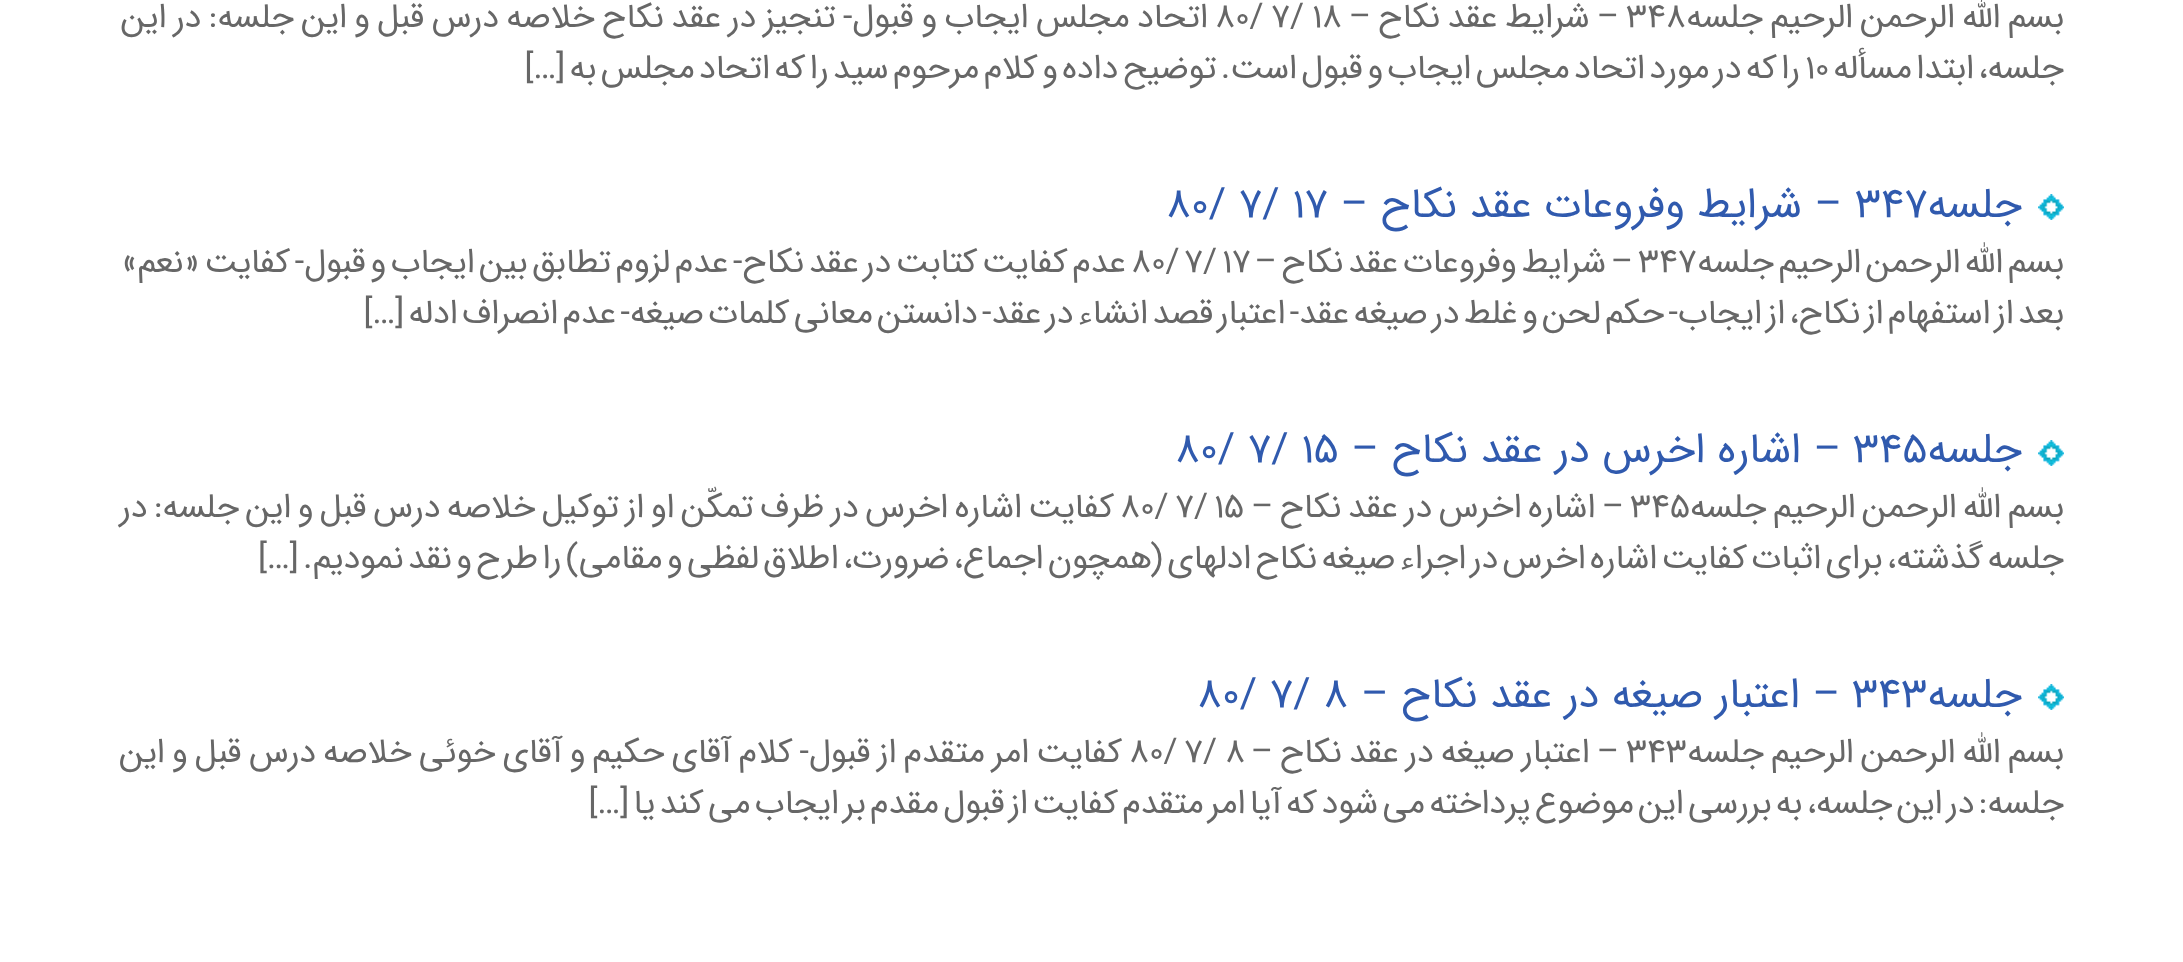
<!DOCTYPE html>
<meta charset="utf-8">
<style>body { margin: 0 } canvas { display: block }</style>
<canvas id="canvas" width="2183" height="962"></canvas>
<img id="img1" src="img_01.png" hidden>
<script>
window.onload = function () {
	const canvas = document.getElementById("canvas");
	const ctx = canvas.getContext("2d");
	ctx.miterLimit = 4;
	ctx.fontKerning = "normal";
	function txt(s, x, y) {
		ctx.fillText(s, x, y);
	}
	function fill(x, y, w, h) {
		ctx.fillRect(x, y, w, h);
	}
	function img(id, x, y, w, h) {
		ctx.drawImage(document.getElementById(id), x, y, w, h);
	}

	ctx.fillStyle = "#FFFFFF";
	fill(0, 0, 2183, 962);
	img("img1", 2038, 194, 26, 26);
	img("img1", 2038, 440, 26, 26);
	img("img1", 2038, 684, 26, 26);
	ctx.wordSpacing = "-3px";
	ctx.direction = "rtl";
	ctx.font = "34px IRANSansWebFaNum";
	ctx.fillStyle = "#676767";
	txt("بسم الله الرحمن الرحيم جلسه", 2064, 27);
	txt("– شرايط عقد نكاح –", 1619, 27);
	ctx.wordSpacing = "0px";
	ctx.direction = "ltr";
	txt("348", 1626, 27);
	txt("18", 1312, 27);
	txt("7/", 1271, 27);
	ctx.wordSpacing = "-3px";
	ctx.direction = "rtl";
	txt("اتحاد مجلس ايجاب و قبول- تنجيز در عقد نكاح خلاصه درس قبل و اين جلسه: در اين", 1208, 27);
	ctx.wordSpacing = "0px";
	ctx.direction = "ltr";
	txt("80/", 1215, 27);
	ctx.wordSpacing = "-6px";
	ctx.direction = "rtl";
	txt("جلسه، ابتدا مسأله", 2064, 78);
	txt("را كه در مورد اتحاد مجلس ايجاب و قبول است. توضيح داده و كلام مرحوم سيد را كه اتحاد مجلس به […]", 1800, 78);
	ctx.wordSpacing = "0px";
	ctx.direction = "ltr";
	txt("10", 1805, 78);
	ctx.direction = "rtl";
	ctx.font = "42px IRANSansWebFaNum";
	ctx.fillStyle = "#305AAE";
	txt("جلسه", 2022, 217);
	ctx.direction = "ltr";
	txt("347", 1855, 217);
	ctx.direction = "rtl";
	txt("– شرايط وفروعات عقد نكاح –", 1842, 217);
	ctx.direction = "ltr";
	txt("80/ 7/ 17", 1166, 217);
	ctx.wordSpacing = "-5.75px";
	ctx.direction = "rtl";
	ctx.font = "34px IRANSansWebFaNum";
	ctx.fillStyle = "#676767";
	txt("بسم الله الرحمن الرحيم جلسه", 2064, 272);
	ctx.wordSpacing = "-5.5px";
	txt("– شرايط وفروعات عقد نكاح –", 1633, 272);
	ctx.wordSpacing = "0px";
	ctx.direction = "ltr";
	txt("347", 1638, 272);
	txt("17", 1222, 272);
	txt("7/", 1184, 272);
	ctx.wordSpacing = "-5.75px";
	ctx.direction = "rtl";
	txt("عدم كفايت كتابت در عقد نكاح- عدم لزوم تطابق بين ايجاب و قبول- كفايت «نعم»", 1126, 272);
	ctx.wordSpacing = "0px";
	ctx.direction = "ltr";
	txt("80/", 1131, 272);
	ctx.wordSpacing = "-6px";
	ctx.direction = "rtl";
	txt("بعد از استفهام از نکاح، از ايجاب- حكم لحن و غلط در صيغه عقد- اعتبار قصد انشاء در عقد- دانستن معاني كلمات صيغه- عدم انصراف ادله […]", 2064, 323);
	ctx.wordSpacing = "0px";
	ctx.font = "42px IRANSansWebFaNum";
	ctx.fillStyle = "#305AAE";
	txt("جلسه", 2022, 462);
	ctx.direction = "ltr";
	txt("345", 1853, 462);
	ctx.direction = "rtl";
	txt("– اشاره اخرس در عقد نکاح –", 1841, 462);
	ctx.direction = "ltr";
	txt("80/ 7/ 15", 1175, 462);
	ctx.wordSpacing = "-3.9px";
	ctx.direction = "rtl";
	ctx.font = "34px IRANSansWebFaNum";
	ctx.fillStyle = "#676767";
	txt("بسم الله الرحمن الرحيم جلسه", 2064, 517);
	txt("– اشاره اخرس در عقد نکاح –", 1624, 517);
	ctx.wordSpacing = "0px";
	ctx.direction = "ltr";
	txt("345", 1630, 517);
	txt("15", 1214, 517);
	txt("7/", 1175, 517);
	ctx.wordSpacing = "-3.9px";
	ctx.direction = "rtl";
	txt("كفايت اشاره اخرس در ظرف تمكّن او از توكيل خلاصه درس قبل و اين جلسه: در", 1114, 517);
	ctx.wordSpacing = "0px";
	ctx.direction = "ltr";
	txt("80/", 1120, 517);
	ctx.wordSpacing = "-6px";
	ctx.direction = "rtl";
	txt("جلسه گذشته، براي اثبات كفايت اشاره اخرس در اجراء صيغه نكاح ادلهاي (همچون اجماع، ضرورت، اطلاق لفظي و مقامي) را طرح و نقد نموديم. […]", 2064, 568);
	ctx.wordSpacing = "0px";
	ctx.font = "42px IRANSansWebFaNum";
	ctx.fillStyle = "#305AAE";
	txt("جلسه", 2022, 707);
	ctx.direction = "ltr";
	txt("343", 1852, 707);
	ctx.direction = "rtl";
	txt("– اعتبار صيغه در عقد نکاح –", 1840, 707);
	ctx.direction = "ltr";
	txt("80/ 7/ 8", 1197, 707);
	ctx.wordSpacing = "-3.25px";
	ctx.direction = "rtl";
	ctx.font = "34px IRANSansWebFaNum";
	ctx.fillStyle = "#676767";
	txt("بسم الله الرحمن الرحيم جلسه", 2064, 762);
	txt("– اعتبار صيغه در عقد نکاح –", 1619, 762);
	ctx.wordSpacing = "0px";
	ctx.direction = "ltr";
	txt("343", 1626, 762);
	txt("8", 1225, 762);
	txt("7/", 1184, 762);
	ctx.wordSpacing = "-3.25px";
	ctx.direction = "rtl";
	txt("كفايت امر متقدم از قبول- کلام آقای حکيم و آقای خوئی خلاصه درس قبل و اين", 1122, 762);
	ctx.wordSpacing = "0px";
	ctx.direction = "ltr";
	txt("80/", 1129, 762);
	ctx.wordSpacing = "-6px";
	ctx.direction = "rtl";
	txt("جلسه: در اين جلسه، به بررسي اين موضوع پرداخته مي شود كه آيا امر متقدم كفايت از قبول مقدم بر ايجاب مي كند يا […]", 2064, 813);
};
</script>
